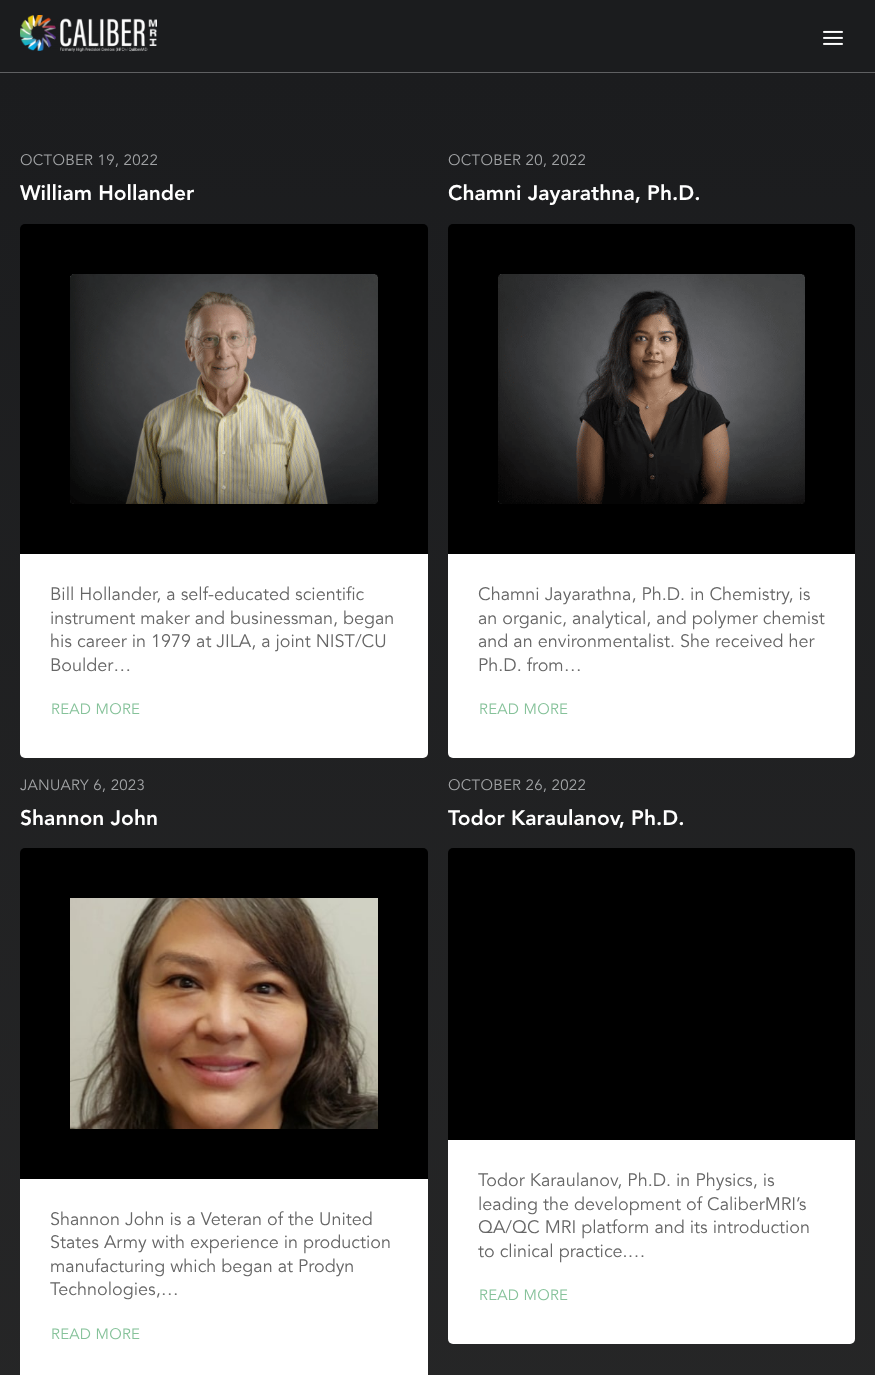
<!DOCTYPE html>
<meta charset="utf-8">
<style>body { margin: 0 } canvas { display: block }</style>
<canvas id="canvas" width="875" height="1375"></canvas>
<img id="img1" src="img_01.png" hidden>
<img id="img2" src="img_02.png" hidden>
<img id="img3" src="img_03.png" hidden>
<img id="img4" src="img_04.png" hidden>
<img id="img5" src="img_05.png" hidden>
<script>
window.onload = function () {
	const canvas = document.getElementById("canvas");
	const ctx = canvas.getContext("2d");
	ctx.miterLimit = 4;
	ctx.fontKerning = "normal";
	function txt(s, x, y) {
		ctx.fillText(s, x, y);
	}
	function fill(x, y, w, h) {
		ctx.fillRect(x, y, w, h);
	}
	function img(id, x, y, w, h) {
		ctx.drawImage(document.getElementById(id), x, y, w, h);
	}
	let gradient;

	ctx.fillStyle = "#FFFFFF";
	fill(0, 0, 875, 1375);
	ctx.fillStyle = "#1B1C1E";
	fill(0, 0, 875, 72);
	ctx.fillStyle = "#5F6062";
	fill(0, 72, 875, 1);
	img("img1", 20, 15, 137, 37);
	img("img2", 823, 30, 20, 15);
	gradient = ctx.createLinearGradient(438, 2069, 438, 73);
	gradient.addColorStop(0, "#2B2B2B");
	gradient.addColorStop(1, "#1B1C1E");
	ctx.fillStyle = gradient;
	fill(0, 73, 875, 1302);
	ctx.fillStyle = "#000000";
	ctx.beginPath();
	ctx.roundRect(20, 224, 408, 330, [5, 5, 0, 0]);
	ctx.fill();
	img("img3", 70, 274, 308, 230);
	ctx.fillStyle = "#FFFFFF";
	ctx.beginPath();
	ctx.roundRect(20, 554, 408, 204, [0, 0, 5, 5]);
	ctx.fill();
	ctx.fillStyle = "#000000";
	ctx.beginPath();
	ctx.roundRect(448, 224, 407, 330, [5, 5, 0, 0]);
	ctx.fill();
	img("img4", 498, 274, 307, 230);
	ctx.fillStyle = "#FFFFFF";
	ctx.beginPath();
	ctx.roundRect(448, 554, 407, 204, [0, 0, 5, 5]);
	ctx.fill();
	ctx.fillStyle = "#000000";
	ctx.beginPath();
	ctx.roundRect(20, 848, 408, 331, [5, 5, 0, 0]);
	ctx.fill();
	img("img5", 70, 898, 308, 231);
	ctx.fillStyle = "#FFFFFF";
	fill(20, 1179, 408, 196);
	ctx.fillStyle = "#000000";
	ctx.beginPath();
	ctx.roundRect(448, 848, 407, 292, [5, 5, 0, 0]);
	ctx.fill();
	ctx.fillStyle = "#FFFFFF";
	ctx.beginPath();
	ctx.roundRect(448, 1140, 407, 204, [0, 0, 5, 5]);
	ctx.fill();
	ctx.letterSpacing = "0.25px";
	ctx.font = "15px Avenir";
	ctx.fillStyle = "#A1A3A5";
	txt("OCTOBER 19, 2022", 20, 165);
	ctx.letterSpacing = "0px";
	ctx.font = "900 21px Avenir";
	ctx.fillStyle = "#FFFFFF";
	txt("William Hollander", 20, 200);
	ctx.font = "18px Avenir";
	ctx.fillStyle = "#666666";
	txt("Bill Hollander, a self-educated scientific", 50, 600);
	txt("instrument maker and businessman, began", 50, 624);
	txt("his career in 1979 at JILA, a joint NIST/CU", 50, 647);
	txt("Boulder…", 50, 671);
	ctx.letterSpacing = "0.25px";
	ctx.font = "15px Avenir";
	ctx.fillStyle = "#86C29A";
	txt("READ MORE", 51, 714);
	ctx.fillStyle = "#A1A3A5";
	txt("OCTOBER 20, 2022", 448, 165);
	ctx.letterSpacing = "0px";
	ctx.font = "900 21px Avenir";
	ctx.fillStyle = "#FFFFFF";
	txt("Chamni Jayarathna, Ph.D.", 448, 200);
	ctx.font = "18px Avenir";
	ctx.fillStyle = "#666666";
	txt("Chamni Jayarathna, Ph.D. in Chemistry, is", 478, 600);
	txt("an organic, analytical, and polymer chemist", 478, 624);
	txt("and an environmentalist. She received her", 478, 647);
	txt("Ph.D. from…", 478, 671);
	ctx.letterSpacing = "0.25px";
	ctx.font = "15px Avenir";
	ctx.fillStyle = "#86C29A";
	txt("READ MORE", 479, 714);
	ctx.fillStyle = "#A1A3A5";
	txt("JANUARY 6, 2023", 20, 790);
	ctx.letterSpacing = "0px";
	ctx.font = "900 21px Avenir";
	ctx.fillStyle = "#FFFFFF";
	txt("Shannon John", 20, 825);
	ctx.font = "18px Avenir";
	ctx.fillStyle = "#666666";
	txt("Shannon John is a Veteran of the United", 50, 1225);
	txt("States Army with experience in production", 50, 1248);
	txt("manufacturing which began at Prodyn", 50, 1272);
	txt("Technologies,…", 50, 1295);
	ctx.letterSpacing = "0.25px";
	ctx.font = "15px Avenir";
	ctx.fillStyle = "#86C29A";
	txt("READ MORE", 51, 1339);
	ctx.fillStyle = "#A1A3A5";
	txt("OCTOBER 26, 2022", 448, 790);
	ctx.save();
	ctx.beginPath();
	ctx.rect(448, 796, 407, 37);
	ctx.clip();
	ctx.letterSpacing = "0px";
	ctx.font = "900 21px Avenir";
	ctx.fillStyle = "#FFFFFF";
	txt("Todor Karaulanov, Ph.D.", 448, 825);
	ctx.restore();
	ctx.letterSpacing = "0px";
	ctx.font = "18px Avenir";
	ctx.fillStyle = "#666666";
	txt("Todor Karaulanov, Ph.D. in Physics, is", 478, 1186);
	txt("leading the development of CaliberMRI’s", 478, 1210);
	txt("QA/QC MRI platform and its introduction", 478, 1233);
	txt("to clinical practice.…", 478, 1257);
	ctx.letterSpacing = "0.25px";
	ctx.font = "15px Avenir";
	ctx.fillStyle = "#86C29A";
	txt("READ MORE", 479, 1300);
};
</script>
